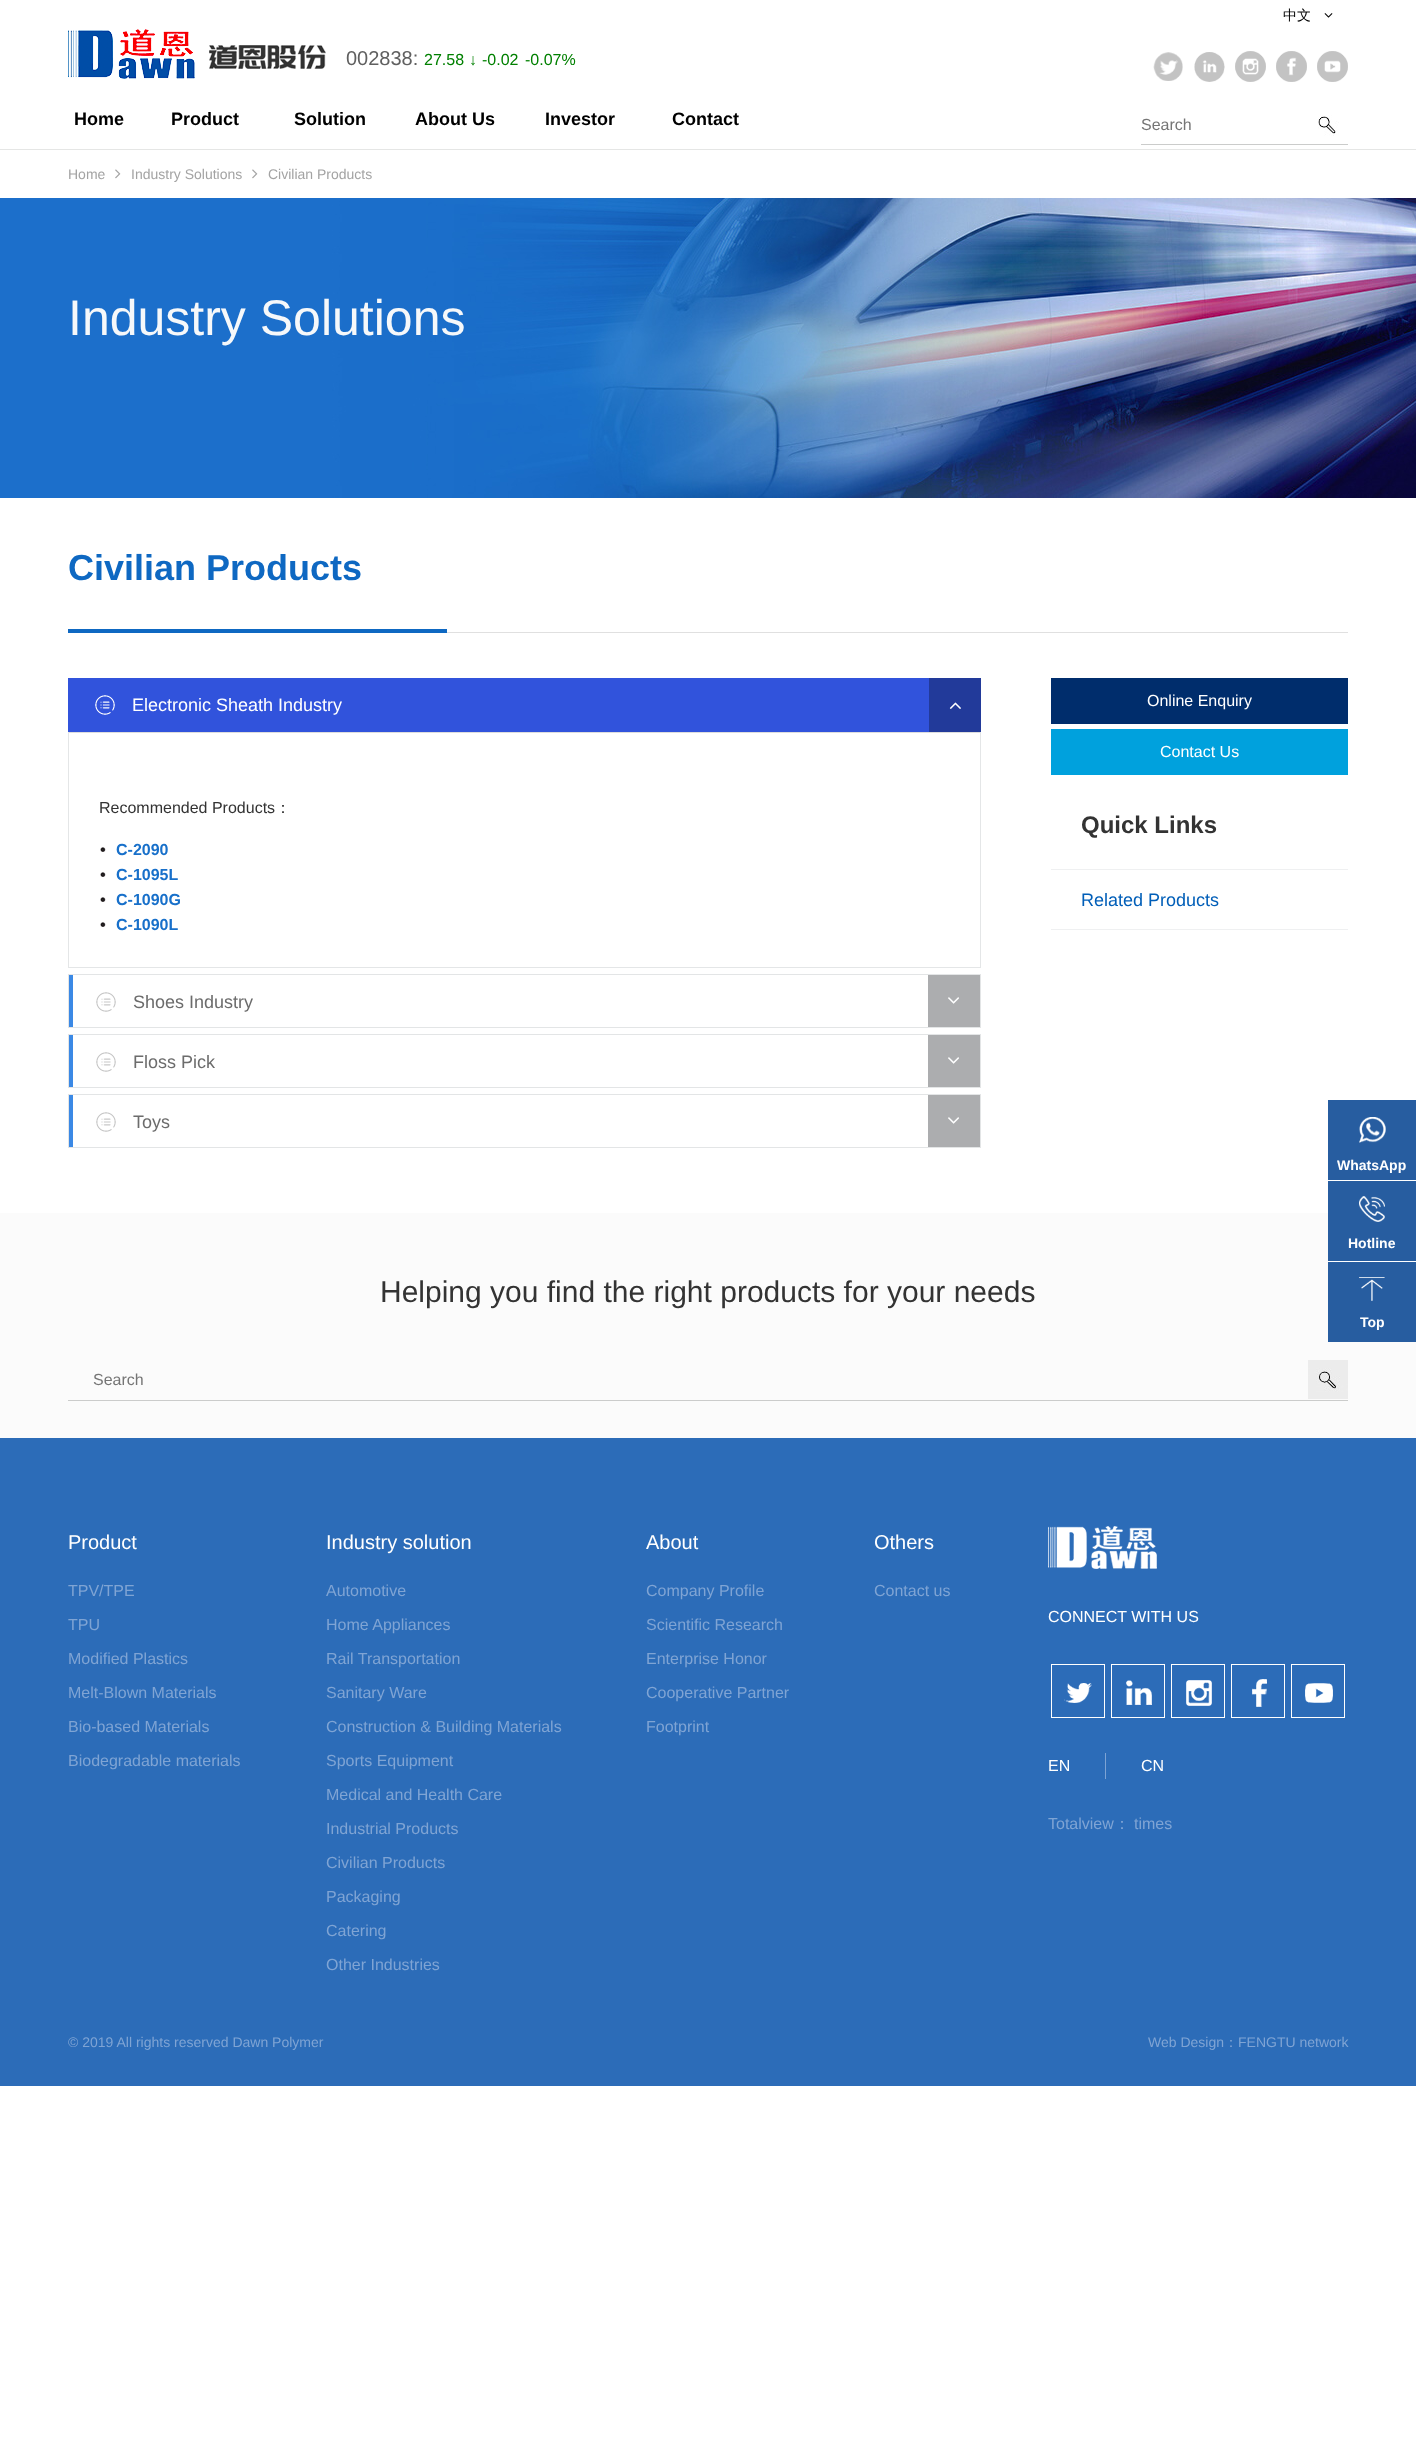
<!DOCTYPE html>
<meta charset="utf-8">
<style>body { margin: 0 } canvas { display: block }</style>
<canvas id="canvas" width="1416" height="2442"></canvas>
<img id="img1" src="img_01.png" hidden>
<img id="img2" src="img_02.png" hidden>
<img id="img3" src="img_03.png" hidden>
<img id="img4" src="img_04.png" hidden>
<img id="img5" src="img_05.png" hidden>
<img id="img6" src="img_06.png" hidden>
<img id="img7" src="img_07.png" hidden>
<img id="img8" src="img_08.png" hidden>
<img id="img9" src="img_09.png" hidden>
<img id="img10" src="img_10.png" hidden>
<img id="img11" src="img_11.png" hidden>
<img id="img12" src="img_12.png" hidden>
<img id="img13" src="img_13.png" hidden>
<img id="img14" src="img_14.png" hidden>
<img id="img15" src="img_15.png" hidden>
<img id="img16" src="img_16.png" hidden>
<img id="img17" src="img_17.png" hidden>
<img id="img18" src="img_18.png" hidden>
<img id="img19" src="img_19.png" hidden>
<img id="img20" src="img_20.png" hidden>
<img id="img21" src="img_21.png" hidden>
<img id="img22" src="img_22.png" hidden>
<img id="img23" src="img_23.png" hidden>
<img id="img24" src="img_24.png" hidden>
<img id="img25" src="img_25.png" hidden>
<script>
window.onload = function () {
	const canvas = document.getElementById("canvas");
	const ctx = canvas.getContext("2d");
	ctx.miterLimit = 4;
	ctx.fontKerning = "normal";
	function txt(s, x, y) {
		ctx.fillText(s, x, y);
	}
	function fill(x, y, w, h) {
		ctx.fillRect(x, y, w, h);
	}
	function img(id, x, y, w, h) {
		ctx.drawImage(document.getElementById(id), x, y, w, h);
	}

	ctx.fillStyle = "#FFFFFF";
	fill(0, 0, 1416, 2442);
	img("img1", 1324, 13, 9, 5);
	img("img2", 1153, 52, 30, 29);
	img("img3", 1194, 52, 31, 30);
	img("img4", 1235, 51, 31, 31);
	img("img5", 1276, 51, 31, 31);
	img("img6", 1317, 51, 31, 31);
	img("img7", 68, 29, 258, 50);
	ctx.fillStyle = "#E5E6E5";
	fill(0, 149, 1416, 1);
	ctx.fillStyle = "#CBCCCB";
	fill(1141, 144, 207, 1);
	img("img8", 1318, 115, 21, 21);
	img("img9", 115, 169, 6, 10);
	img("img9", 252, 169, 6, 10);
	img("img10", 0, 198, 1416, 300);
	ctx.fillStyle = "#E0E0E0";
	fill(447, 632, 901, 1);
	ctx.fillStyle = "#0E68C2";
	fill(68, 629, 379, 4);
	ctx.fillStyle = "#3153DC";
	fill(68, 678, 861, 54);
	img("img11", 95, 695, 20, 20);
	ctx.fillStyle = "#223A9A";
	fill(929, 678, 52, 54);
	img("img12", 949, 702, 12, 7);
	ctx.fillStyle = "#DDDDDD";
	fill(68, 732, 913, 1);
	ctx.fillStyle = "#E4E6E7";
	fill(980, 732, 1, 236);
	fill(68, 967, 913, 1);
	fill(68, 732, 1, 236);
	img("img13", 100, 847, 6, 5);
	img("img13", 100, 872, 6, 5);
	img("img13", 100, 897, 6, 5);
	img("img13", 100, 922, 6, 5);
	ctx.strokeStyle = "#E3E5E6";
	ctx.strokeRect(68.5, 974.5, 912, 53);
	ctx.fillStyle = "#3B89E5";
	fill(69, 975, 4, 52);
	img("img14", 96, 992, 20, 20);
	ctx.fillStyle = "#ACADAF";
	fill(928, 975, 52, 52);
	img("img15", 948, 997, 11, 7);
	ctx.strokeRect(68.5, 1034.5, 912, 53);
	ctx.fillStyle = "#3B89E5";
	fill(69, 1035, 4, 52);
	img("img14", 96, 1052, 20, 20);
	ctx.fillStyle = "#ACADAF";
	fill(928, 1035, 52, 52);
	img("img15", 948, 1057, 11, 7);
	ctx.strokeRect(68.5, 1094.5, 912, 53);
	ctx.fillStyle = "#3B89E5";
	fill(69, 1095, 4, 52);
	img("img14", 96, 1112, 20, 20);
	ctx.fillStyle = "#ACADAF";
	fill(928, 1095, 52, 52);
	img("img15", 948, 1117, 11, 7);
	ctx.fillStyle = "#002D6C";
	fill(1051, 678, 297, 46);
	ctx.fillStyle = "#00A1DD";
	fill(1051, 729, 297, 46);
	ctx.fillStyle = "#EFF0F1";
	fill(1051, 869, 297, 1);
	fill(1051, 929, 297, 1);
	ctx.fillStyle = "#FBFBFB";
	fill(0, 1213, 1416, 225);
	ctx.fillStyle = "#FFFFFF";
	fill(1328, 1213, 88, 49);
	ctx.fillStyle = "#275DA0";
	fill(1328, 1100, 88, 80);
	img("img16", 1359, 1117, 27, 26);
	fill(1328, 1181, 88, 80);
	img("img17", 1359, 1196, 26, 26);
	fill(1328, 1262, 88, 80);
	img("img18", 1359, 1277, 26, 24);
	ctx.fillStyle = "#2C6CB8";
	fill(0, 1438, 1416, 648);
	ctx.fillStyle = "#CBCCCB";
	fill(68, 1400, 1280, 1);
	img("img19", 1308, 1360, 40, 39);
	img("img20", 1048, 1526, 109, 43);
	ctx.strokeStyle = "#FFFFFF";
	ctx.strokeRect(1051.5, 1664.5, 53, 53);
	img("img21", 1064, 1683, 28, 20);
	ctx.strokeRect(1111.5, 1664.5, 53, 53);
	img("img22", 1126, 1680, 26, 25);
	ctx.strokeRect(1171.5, 1664.5, 53, 53);
	img("img23", 1186, 1680, 26, 26);
	ctx.strokeRect(1231.5, 1664.5, 53, 53);
	img("img24", 1252, 1679, 15, 28);
	ctx.strokeRect(1291.5, 1664.5, 53, 53);
	img("img25", 1305, 1683, 28, 20);
	ctx.fillStyle = "#7DA3D4";
	fill(1105, 1753, 1, 26);
	ctx.font = "500 14px WenQuanYi Zen Hei";
	ctx.fillStyle = "#000000";
	txt("中文", 1283, 20);
	ctx.font = "20px Liberation Sans";
	ctx.fillStyle = "#606060";
	txt("002838:", 346, 65);
	ctx.font = "16px Liberation Sans";
	ctx.fillStyle = "#008000";
	txt("27.58", 424, 65);
	ctx.font = "bold 16px Liberation Serif";
	txt("↓", 469, 65);
	ctx.font = "16px Liberation Sans";
	txt("-0.02", 482, 65);
	txt("-0.07%", 525, 65);
	ctx.font = "bold 18px Liberation Sans";
	ctx.fillStyle = "#000000";
	txt("Home", 74, 125);
	txt("Product", 171, 125);
	txt("Solution", 294, 125);
	txt("About Us", 415, 125);
	txt("Investor", 545, 125);
	txt("Contact", 672, 125);
	ctx.font = "16px Liberation Sans";
	ctx.fillStyle = "#757575";
	txt("Search", 1141, 130);
	ctx.font = "14px Liberation Sans";
	ctx.fillStyle = "#A3A3A3";
	txt("Home", 68, 179);
	txt("Industry Solutions", 131, 179);
	txt("Civilian Products", 268, 179);
	ctx.font = "50px Liberation Sans";
	ctx.fillStyle = "#F6F8FA";
	txt("Industry Solutions", 68, 335);
	ctx.font = "bold 36px Liberation Sans";
	ctx.fillStyle = "#0E68C2";
	txt("Civilian Products", 68, 580);
	ctx.font = "18px Liberation Sans";
	ctx.fillStyle = "#FFFFFF";
	txt("Electronic Sheath Industry", 132, 711);
	ctx.font = "16px Liberation Sans";
	ctx.fillStyle = "#333333";
	txt("Recommended Products", 99, 813);
	ctx.font = "500 16px WenQuanYi Zen Hei";
	txt("：", 275, 813);
	ctx.font = "bold 16px Liberation Sans";
	ctx.fillStyle = "#1870CA";
	txt("C-2090", 116, 855);
	txt("C-1095L", 116, 880);
	txt("C-1090G", 116, 905);
	txt("C-1090L", 116, 930);
	ctx.font = "18px Liberation Sans";
	ctx.fillStyle = "#6C6C6C";
	txt("Shoes Industry", 133, 1008);
	txt("Floss Pick", 133, 1068);
	txt("Toys", 133, 1128);
	ctx.font = "16px Liberation Sans";
	ctx.fillStyle = "#FFFFFF";
	txt("Online Enquiry", 1147, 706);
	txt("Contact Us", 1160, 757);
	ctx.font = "bold 24px Liberation Sans";
	ctx.fillStyle = "#333333";
	txt("Quick Links", 1081, 833);
	ctx.font = "18px Liberation Sans";
	ctx.fillStyle = "#005EB8";
	txt("Related Products", 1081, 906);
	ctx.font = "bold 14px Liberation Sans";
	ctx.fillStyle = "#FFFFFF";
	txt("WhatsApp", 1337, 1170);
	txt("Hotline", 1348, 1248);
	txt("Top", 1360, 1327);
	ctx.font = "30px Liberation Sans";
	ctx.fillStyle = "#333333";
	txt("Helping you find the right products for your needs", 380, 1302);
	ctx.font = "16px Liberation Sans";
	ctx.fillStyle = "#757575";
	txt("Search", 93, 1385);
	ctx.font = "20px Liberation Sans";
	ctx.fillStyle = "#FFFFFF";
	txt("Product", 68, 1549);
	ctx.font = "16px Liberation Sans";
	ctx.fillStyle = "#7FA4D4";
	txt("TPV/TPE", 68, 1596);
	txt("TPU", 68, 1630);
	txt("Modified Plastics", 68, 1664);
	txt("Melt-Blown Materials", 68, 1698);
	txt("Bio-based Materials", 68, 1732);
	txt("Biodegradable materials", 68, 1766);
	ctx.font = "20px Liberation Sans";
	ctx.fillStyle = "#FFFFFF";
	txt("Industry solution", 326, 1549);
	ctx.font = "16px Liberation Sans";
	ctx.fillStyle = "#7FA4D4";
	txt("Automotive", 326, 1596);
	txt("Home Appliances", 326, 1630);
	txt("Rail Transportation", 326, 1664);
	txt("Sanitary Ware", 326, 1698);
	txt("Construction & Building Materials", 326, 1732);
	txt("Sports Equipment", 326, 1766);
	txt("Medical and Health Care", 326, 1800);
	txt("Industrial Products", 326, 1834);
	txt("Civilian Products", 326, 1868);
	txt("Packaging", 326, 1902);
	txt("Catering", 326, 1936);
	txt("Other Industries", 326, 1970);
	ctx.font = "20px Liberation Sans";
	ctx.fillStyle = "#FFFFFF";
	txt("About", 646, 1549);
	ctx.font = "16px Liberation Sans";
	ctx.fillStyle = "#7FA4D4";
	txt("Company Profile", 646, 1596);
	txt("Scientific Research", 646, 1630);
	txt("Enterprise Honor", 646, 1664);
	txt("Cooperative Partner", 646, 1698);
	txt("Footprint", 646, 1732);
	ctx.font = "20px Liberation Sans";
	ctx.fillStyle = "#FFFFFF";
	txt("Others", 874, 1549);
	ctx.font = "16px Liberation Sans";
	ctx.fillStyle = "#7FA4D4";
	txt("Contact us", 874, 1596);
	ctx.fillStyle = "#FFFFFF";
	txt("CONNECT WITH US", 1048, 1622);
	txt("EN", 1048, 1771);
	txt("CN", 1141, 1771);
	ctx.fillStyle = "#7FA4D4";
	txt("Totalview", 1048, 1829);
	ctx.font = "500 16px WenQuanYi Zen Hei";
	txt("：", 1114, 1829);
	ctx.font = "16px Liberation Sans";
	txt("times", 1134, 1829);
	ctx.font = "14px Liberation Sans";
	txt("© 2019 All rights reserved Dawn Polymer", 68, 2047);
	txt("Web Design", 1148, 2047);
	ctx.font = "500 14px WenQuanYi Zen Hei";
	txt("：", 1224, 2047);
	ctx.font = "14px Liberation Sans";
	txt("FENGTU network", 1238, 2047);
};
</script>
